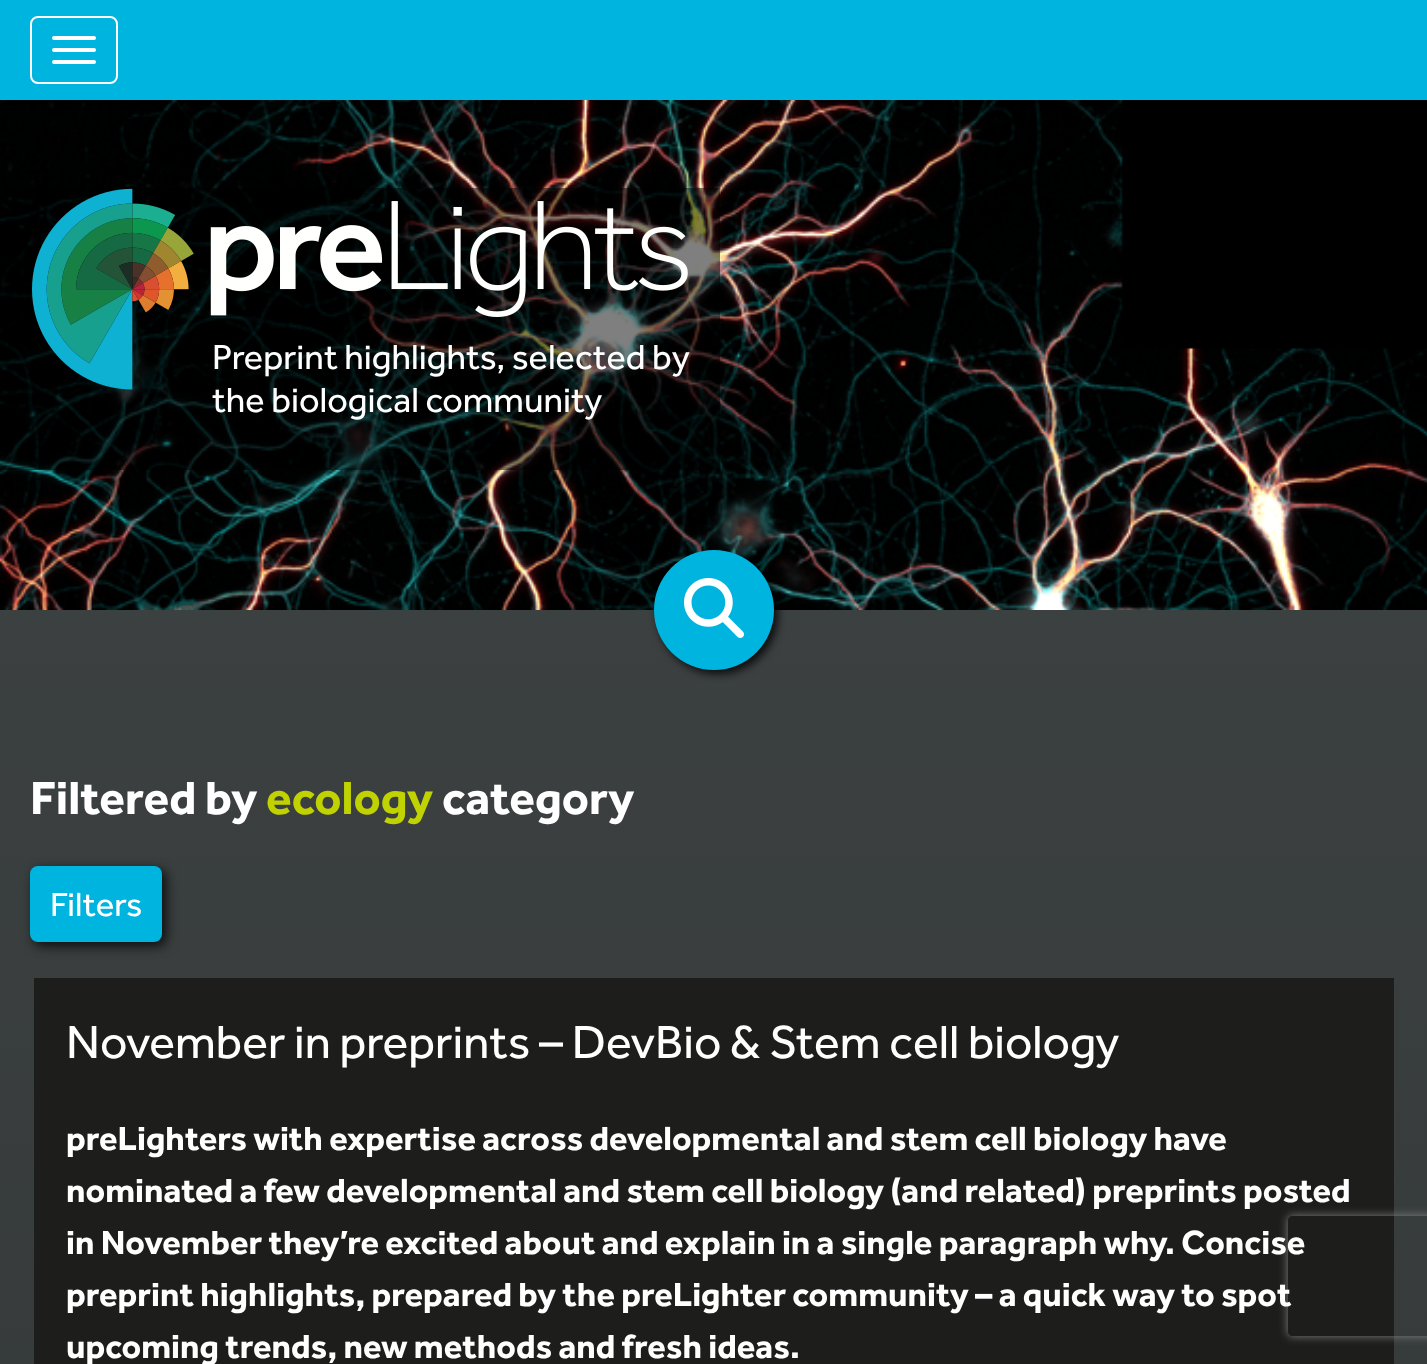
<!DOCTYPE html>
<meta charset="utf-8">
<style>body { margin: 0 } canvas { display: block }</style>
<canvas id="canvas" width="1427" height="1364"></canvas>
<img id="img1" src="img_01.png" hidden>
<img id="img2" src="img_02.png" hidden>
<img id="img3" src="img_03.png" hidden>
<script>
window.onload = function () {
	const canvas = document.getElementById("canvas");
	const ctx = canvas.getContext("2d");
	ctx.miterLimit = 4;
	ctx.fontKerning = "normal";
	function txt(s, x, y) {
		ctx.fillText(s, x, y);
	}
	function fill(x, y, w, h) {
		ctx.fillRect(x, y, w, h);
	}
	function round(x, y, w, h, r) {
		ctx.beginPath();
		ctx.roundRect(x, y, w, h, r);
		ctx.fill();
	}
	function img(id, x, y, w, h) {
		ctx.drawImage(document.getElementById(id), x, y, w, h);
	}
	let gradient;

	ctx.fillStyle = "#FFFFFF";
	fill(0, 0, 1427, 1364);
	gradient = ctx.createLinearGradient(714, 0, 714, 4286);
	gradient.addColorStop(0, "#3F4445");
	gradient.addColorStop(1, "#252829");
	ctx.fillStyle = gradient;
	fill(0, 610, 1427, 754);
	ctx.fillStyle = "#00B4E0";
	fill(0, 0, 1427, 100);
	ctx.beginPath();
	ctx.roundRect(31, 17, 86, 66, 7);
	ctx.strokeStyle = "#FFFFFF";
	ctx.lineWidth = 2;
	ctx.stroke();
	ctx.fillStyle = "#FFFFFF";
	round(52, 36, 44, 4, 2);
	round(52, 48, 44, 4, 2);
	round(52, 60, 44, 4, 2);
	img("img1", 0, 100, 1427, 510);
	ctx.fillStyle = "rgba(0, 0, 0, 0.5)";
	fill(0, 188, 720, 282);
	img("img2", 32, 188, 656, 202);
	ctx.fillStyle = "rgba(0, 0, 0, 0.8)";
	ctx.filter = "blur(4px)";
	ctx.beginPath();
	ctx.roundRect(658, 554, 120, 120, 60);
	ctx.fill();
	ctx.filter = "none";
	ctx.fillStyle = "#00B4E0";
	ctx.beginPath();
	ctx.arc(714, 610, 60, 0, Math.PI * 2);
	ctx.fill();
	img("img3", 684, 578, 60, 60);
	ctx.fillStyle = "rgba(0, 0, 0, 0.8)";
	ctx.filter = "blur(6px)";
	ctx.beginPath();
	ctx.roundRect(34, 870, 132, 76, 8);
	ctx.fill();
	ctx.filter = "none";
	ctx.fillStyle = "#00B4E0";
	round(30, 866, 132, 76, 8);
	ctx.fillStyle = "#1D1D1B";
	fill(34, 978, 1360, 386);
	ctx.save();
	ctx.beginPath();
	ctx.moveTo(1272, 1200);
	ctx.lineTo(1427, 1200);
	ctx.lineTo(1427, 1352);
	ctx.lineTo(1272, 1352);
	ctx.closePath();
	ctx.moveTo(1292, 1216);
	ctx.lineTo(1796, 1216);
	ctx.bezierCurveTo(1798, 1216, 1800, 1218, 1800, 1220);
	ctx.lineTo(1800, 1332);
	ctx.bezierCurveTo(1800, 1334, 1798, 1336, 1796, 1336);
	ctx.lineTo(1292, 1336);
	ctx.bezierCurveTo(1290, 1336, 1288, 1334, 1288, 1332);
	ctx.lineTo(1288, 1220);
	ctx.bezierCurveTo(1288, 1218, 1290, 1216, 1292, 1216);
	ctx.closePath();
	ctx.clip("evenodd");
	ctx.fillStyle = "#808080";
	ctx.filter = "blur(5px)";
	ctx.beginPath();
	ctx.roundRect(1288, 1216, 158, 120, 4);
	ctx.fill();
	ctx.filter = "none";
	ctx.restore();
	ctx.font = "36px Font";
	ctx.fillStyle = "#FFFFFF";
	txt("Preprint highlights, selected by", 212, 369);
	txt("the biological community", 212, 412);
	ctx.font = "bold 48px Font";
	txt("Filtered by", 30, 814);
	ctx.fillStyle = "#C0D301";
	txt("ecology", 266, 814);
	ctx.fillStyle = "#FFFFFF";
	txt("category", 442, 814);
	ctx.font = "34.65px Font";
	txt("Filters", 50, 916);
	ctx.font = "48px Font";
	txt("November in preprints – DevBio & Stem cell biology", 66, 1058);
	ctx.font = "bold 34.65px Font";
	txt("preLighters with expertise across developmental and stem cell biology have", 66, 1150);
	txt("nominated a few developmental and stem cell biology (and related) preprints posted", 66, 1202);
	txt("in November they’re excited about and explain in a single paragraph why. Concise", 66, 1254);
	txt("preprint highlights, prepared by the preLighter community – a quick way to spot", 66, 1306);
	txt("upcoming trends, new methods and fresh ideas.", 66, 1358);
};
</script>
